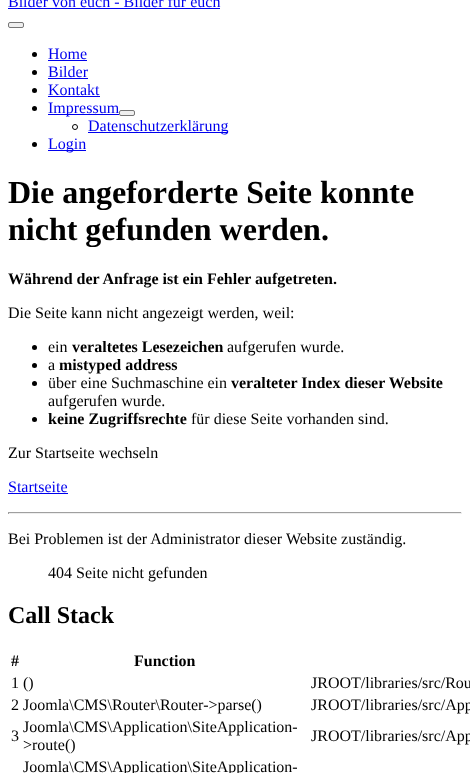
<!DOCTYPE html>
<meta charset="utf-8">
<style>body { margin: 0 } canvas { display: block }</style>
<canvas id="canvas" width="470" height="773"></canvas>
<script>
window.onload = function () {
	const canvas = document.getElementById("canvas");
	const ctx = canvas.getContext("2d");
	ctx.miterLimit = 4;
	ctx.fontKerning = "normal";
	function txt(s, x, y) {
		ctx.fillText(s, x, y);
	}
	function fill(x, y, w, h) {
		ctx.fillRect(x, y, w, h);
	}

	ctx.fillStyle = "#FFFFFF";
	fill(0, 0, 470, 773);
	ctx.fillStyle = "#0000EE";
	fill(8, 8, 212, 1);
	ctx.fillStyle = "#EFEFEF";
	ctx.beginPath();
	ctx.roundRect(8.5, 22.5, 15, 5, 1.5);
	ctx.fill();
	ctx.strokeStyle = "#767676";
	ctx.stroke();
	ctx.fillStyle = "#000000";
	ctx.beginPath();
	ctx.arc(34.5, 54.5, 2.5, 0, Math.PI * 2);
	ctx.fill();
	ctx.fillStyle = "#0000EE";
	fill(48, 60, 39, 1);
	ctx.fillStyle = "#000000";
	ctx.beginPath();
	ctx.arc(34.5, 72.5, 2.5, 0, Math.PI * 2);
	ctx.fill();
	ctx.fillStyle = "#0000EE";
	fill(48, 78, 40, 1);
	ctx.fillStyle = "#000000";
	ctx.beginPath();
	ctx.arc(34.5, 90.5, 2.5, 0, Math.PI * 2);
	ctx.fill();
	ctx.fillStyle = "#0000EE";
	fill(48, 96, 52, 1);
	ctx.fillStyle = "#000000";
	ctx.beginPath();
	ctx.arc(34.5, 108.5, 2.5, 0, Math.PI * 2);
	ctx.fill();
	ctx.fillStyle = "#0000EE";
	fill(48, 114, 71, 1);
	ctx.fillStyle = "#EFEFEF";
	ctx.beginPath();
	ctx.roundRect(119.5, 110.5, 15, 5, 1.5);
	ctx.fill();
	ctx.stroke();
	ctx.beginPath();
	ctx.arc(75, 127, 2.5, 0, Math.PI * 2);
	ctx.strokeStyle = "#000000";
	ctx.stroke();
	ctx.fillStyle = "#0000EE";
	fill(88, 132, 140, 1);
	ctx.fillStyle = "#000000";
	ctx.beginPath();
	ctx.arc(34.5, 144.5, 2.5, 0, Math.PI * 2);
	ctx.fill();
	ctx.fillStyle = "#0000EE";
	fill(48, 150, 38, 1);
	ctx.fillStyle = "#000000";
	ctx.beginPath();
	ctx.arc(34.5, 347.5, 2.5, 0, Math.PI * 2);
	ctx.fill();
	ctx.beginPath();
	ctx.arc(34.5, 365.5, 2.5, 0, Math.PI * 2);
	ctx.fill();
	ctx.beginPath();
	ctx.arc(34.5, 383.5, 2.5, 0, Math.PI * 2);
	ctx.fill();
	ctx.beginPath();
	ctx.arc(34.5, 419.5, 2.5, 0, Math.PI * 2);
	ctx.fill();
	ctx.fillStyle = "#0000EE";
	fill(8, 493, 60, 1);
	ctx.fillStyle = "#9F9F9F";
	fill(8, 512, 454, 1);
	ctx.fillStyle = "#EEEEEE";
	fill(461, 512, 1, 2);
	fill(8, 513, 454, 1);
	ctx.fillStyle = "#9F9F9F";
	fill(8, 512, 1, 2);
	ctx.font = "16px Liberation Serif";
	ctx.fillStyle = "#0000EE";
	txt("Bilder von euch - Bilder für euch", 8, 7);
	txt("Home", 48, 59);
	txt("Bilder", 48, 77);
	txt("Kontakt", 48, 95);
	txt("Impressum", 48, 113);
	txt("Datenschutzerklärung", 88, 131);
	txt("Login", 48, 149);
	ctx.font = "bold 32px Liberation Serif";
	ctx.fillStyle = "#000000";
	txt("Die angeforderte Seite konnte", 8, 203);
	txt("nicht gefunden werden.", 8, 240);
	ctx.font = "bold 16px Liberation Serif";
	txt("Während der Anfrage ist ein Fehler aufgetreten.", 8, 284);
	ctx.font = "16px Liberation Serif";
	txt("Die Seite kann nicht angezeigt werden, weil:", 8, 318);
	txt("ein", 48, 352);
	ctx.font = "bold 16px Liberation Serif";
	txt("veraltetes Lesezeichen", 72, 352);
	ctx.font = "16px Liberation Serif";
	txt("aufgerufen wurde.", 227, 352);
	txt("a", 48, 370);
	ctx.font = "bold 16px Liberation Serif";
	txt("mistyped address", 59, 370);
	ctx.font = "16px Liberation Serif";
	txt("über eine Suchmaschine ein", 48, 388);
	ctx.font = "bold 16px Liberation Serif";
	txt("veralteter Index dieser Website", 231, 388);
	ctx.font = "16px Liberation Serif";
	txt("aufgerufen wurde.", 48, 406);
	ctx.font = "bold 16px Liberation Serif";
	txt("keine Zugriffsrechte", 48, 424);
	ctx.font = "16px Liberation Serif";
	txt("für diese Seite vorhanden sind.", 191, 424);
	txt("Zur Startseite wechseln", 8, 458);
	ctx.fillStyle = "#0000EE";
	txt("Startseite", 8, 492);
	ctx.fillStyle = "#000000";
	txt("Bei Problemen ist der Administrator dieser Website zuständig.", 8, 544);
	txt("404 Seite nicht gefunden", 48, 578);
	ctx.font = "bold 24px Liberation Serif";
	txt("Call Stack", 8, 623);
	ctx.font = "bold 16px Liberation Serif";
	txt("#", 11, 666);
	txt("Function", 134, 666);
	ctx.font = "16px Liberation Serif";
	txt("1 ()", 11, 688);
	txt("JROOT/libraries/src/Rou", 311, 688);
	txt("2 Joomla\\CMS\\Router\\Router->parse()", 11, 710);
	txt("JROOT/libraries/src/App", 311, 710);
	txt("3", 11, 741);
	txt("Joomla\\CMS\\Application\\SiteApplication-", 23, 732);
	txt(">route()", 23, 750);
	txt("JROOT/libraries/src/App", 311, 741);
	txt("Joomla\\CMS\\Application\\SiteApplication-", 23, 772);
};
</script>
